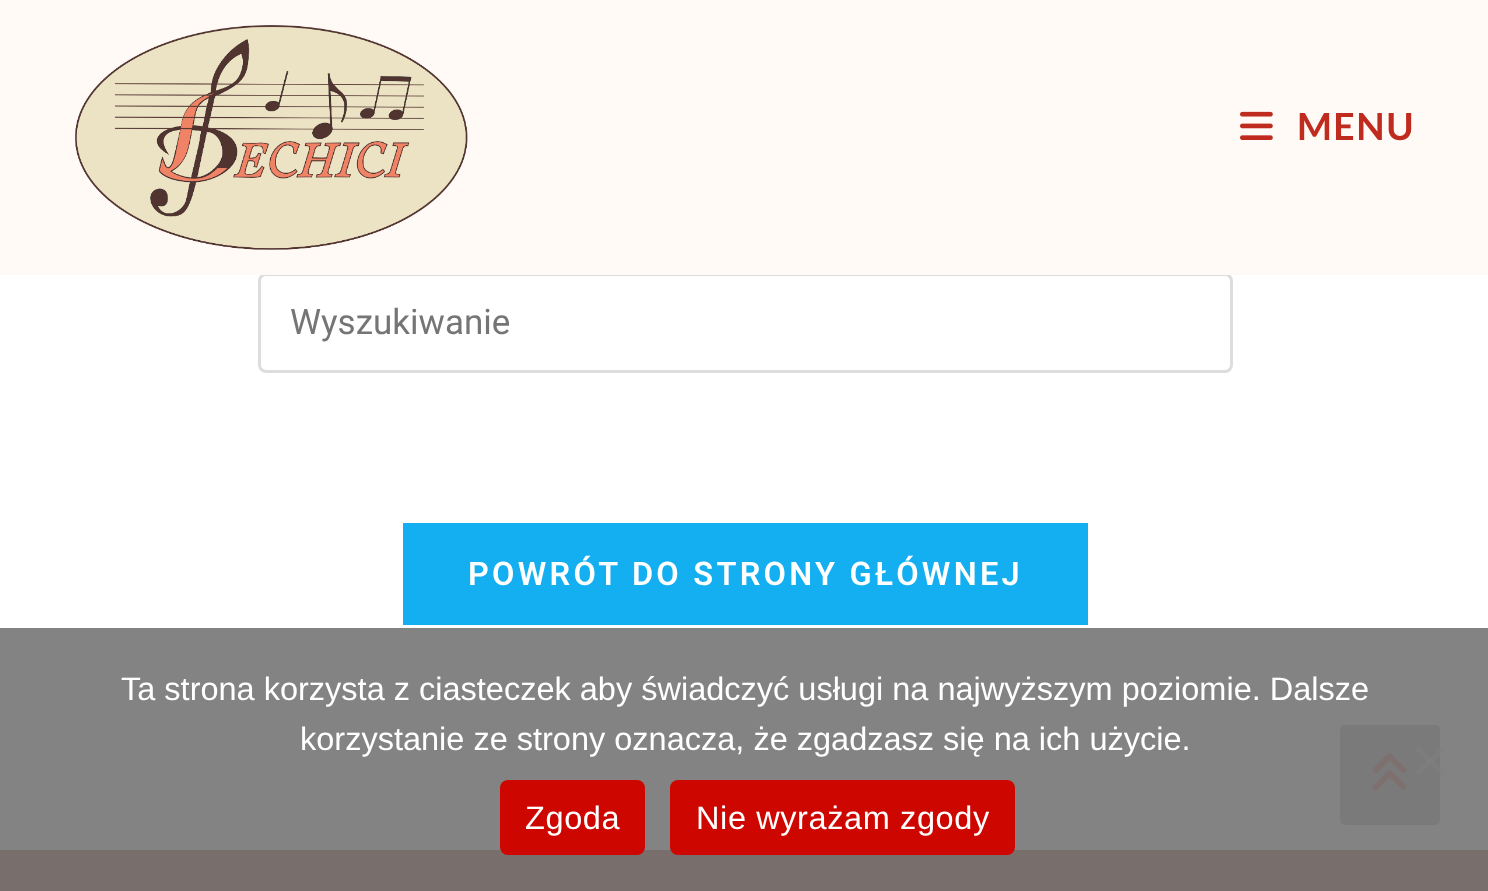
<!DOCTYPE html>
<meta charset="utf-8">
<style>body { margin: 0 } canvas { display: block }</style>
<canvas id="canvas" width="1488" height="891"></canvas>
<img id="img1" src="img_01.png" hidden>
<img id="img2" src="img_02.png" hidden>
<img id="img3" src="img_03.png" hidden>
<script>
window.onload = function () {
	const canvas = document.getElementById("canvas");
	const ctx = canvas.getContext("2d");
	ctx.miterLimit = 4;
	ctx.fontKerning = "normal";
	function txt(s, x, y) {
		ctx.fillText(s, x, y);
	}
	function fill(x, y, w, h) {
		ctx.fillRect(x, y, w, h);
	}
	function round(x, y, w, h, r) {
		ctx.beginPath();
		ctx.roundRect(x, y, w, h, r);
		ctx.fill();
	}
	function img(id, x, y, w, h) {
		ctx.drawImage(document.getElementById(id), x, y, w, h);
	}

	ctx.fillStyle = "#FFFFFF";
	fill(0, 0, 1488, 891);
	ctx.fillStyle = "#838383";
	fill(0, 628, 1488, 222);
	ctx.beginPath();
	ctx.roundRect(259.5, 274.5, 972, 97, 6.5);
	ctx.strokeStyle = "#DDDDDD";
	ctx.lineWidth = 3;
	ctx.stroke();
	ctx.fillStyle = "#FFFAF5";
	fill(0, 0, 1488, 275);
	img("img1", 75, 25, 393, 225);
	img("img2", 1240, 111, 33, 29);
	ctx.fillStyle = "#13AFF0";
	fill(403, 523, 685, 102);
	ctx.fillStyle = "#786F6C";
	fill(0, 850, 1488, 41);
	ctx.fillStyle = "#7A7A7A";
	round(1340, 725, 100, 100, 5);
	ctx.fillStyle = "rgba(128, 128, 128, 0.5)";
	ctx.beginPath();
	ctx.moveTo(1441.5, 746);
	ctx.lineTo(1445, 750);
	ctx.lineTo(1418.5, 776.5);
	ctx.lineTo(1415, 772.5);
	ctx.closePath();
	ctx.fill();
	ctx.beginPath();
	ctx.moveTo(1415, 750);
	ctx.lineTo(1418.5, 746);
	ctx.lineTo(1445, 772.5);
	ctx.lineTo(1441.5, 776.5);
	ctx.closePath();
	ctx.fill();
	ctx.fillStyle = "#CE0600";
	round(500, 780, 145, 75, 8);
	round(670, 780, 345, 75, 8);
	img("img3", 1372, 753, 35, 37);
	ctx.letterSpacing = "1.5px";
	ctx.font = "bold 37.5px Lato";
	ctx.fillStyle = "#BF2C1F";
	txt("MENU", 1297, 140);
	ctx.letterSpacing = "0px";
	ctx.font = "35px Roboto";
	ctx.fillStyle = "#757575";
	txt("Wyszukiwanie", 290, 334);
	ctx.letterSpacing = "3.25px";
	ctx.font = "600 32.5px Roboto";
	ctx.fillStyle = "#FFFFFF";
	txt("POWRÓT DO STRONY GŁÓWNEJ", 468, 585);
	ctx.letterSpacing = "0px";
	ctx.font = "32.5px Liberation Sans";
	txt("Ta strona korzysta z ciasteczek aby świadczyć usługi na najwyższym poziomie. Dalsze", 121, 700);
	txt("korzystanie ze strony oznacza, że zgadzasz się na ich użycie.", 300, 750);
	ctx.letterSpacing = "0.6px";
	txt("Zgoda", 525, 829);
	txt("Nie wyrażam zgody", 696, 829);
};
</script>
